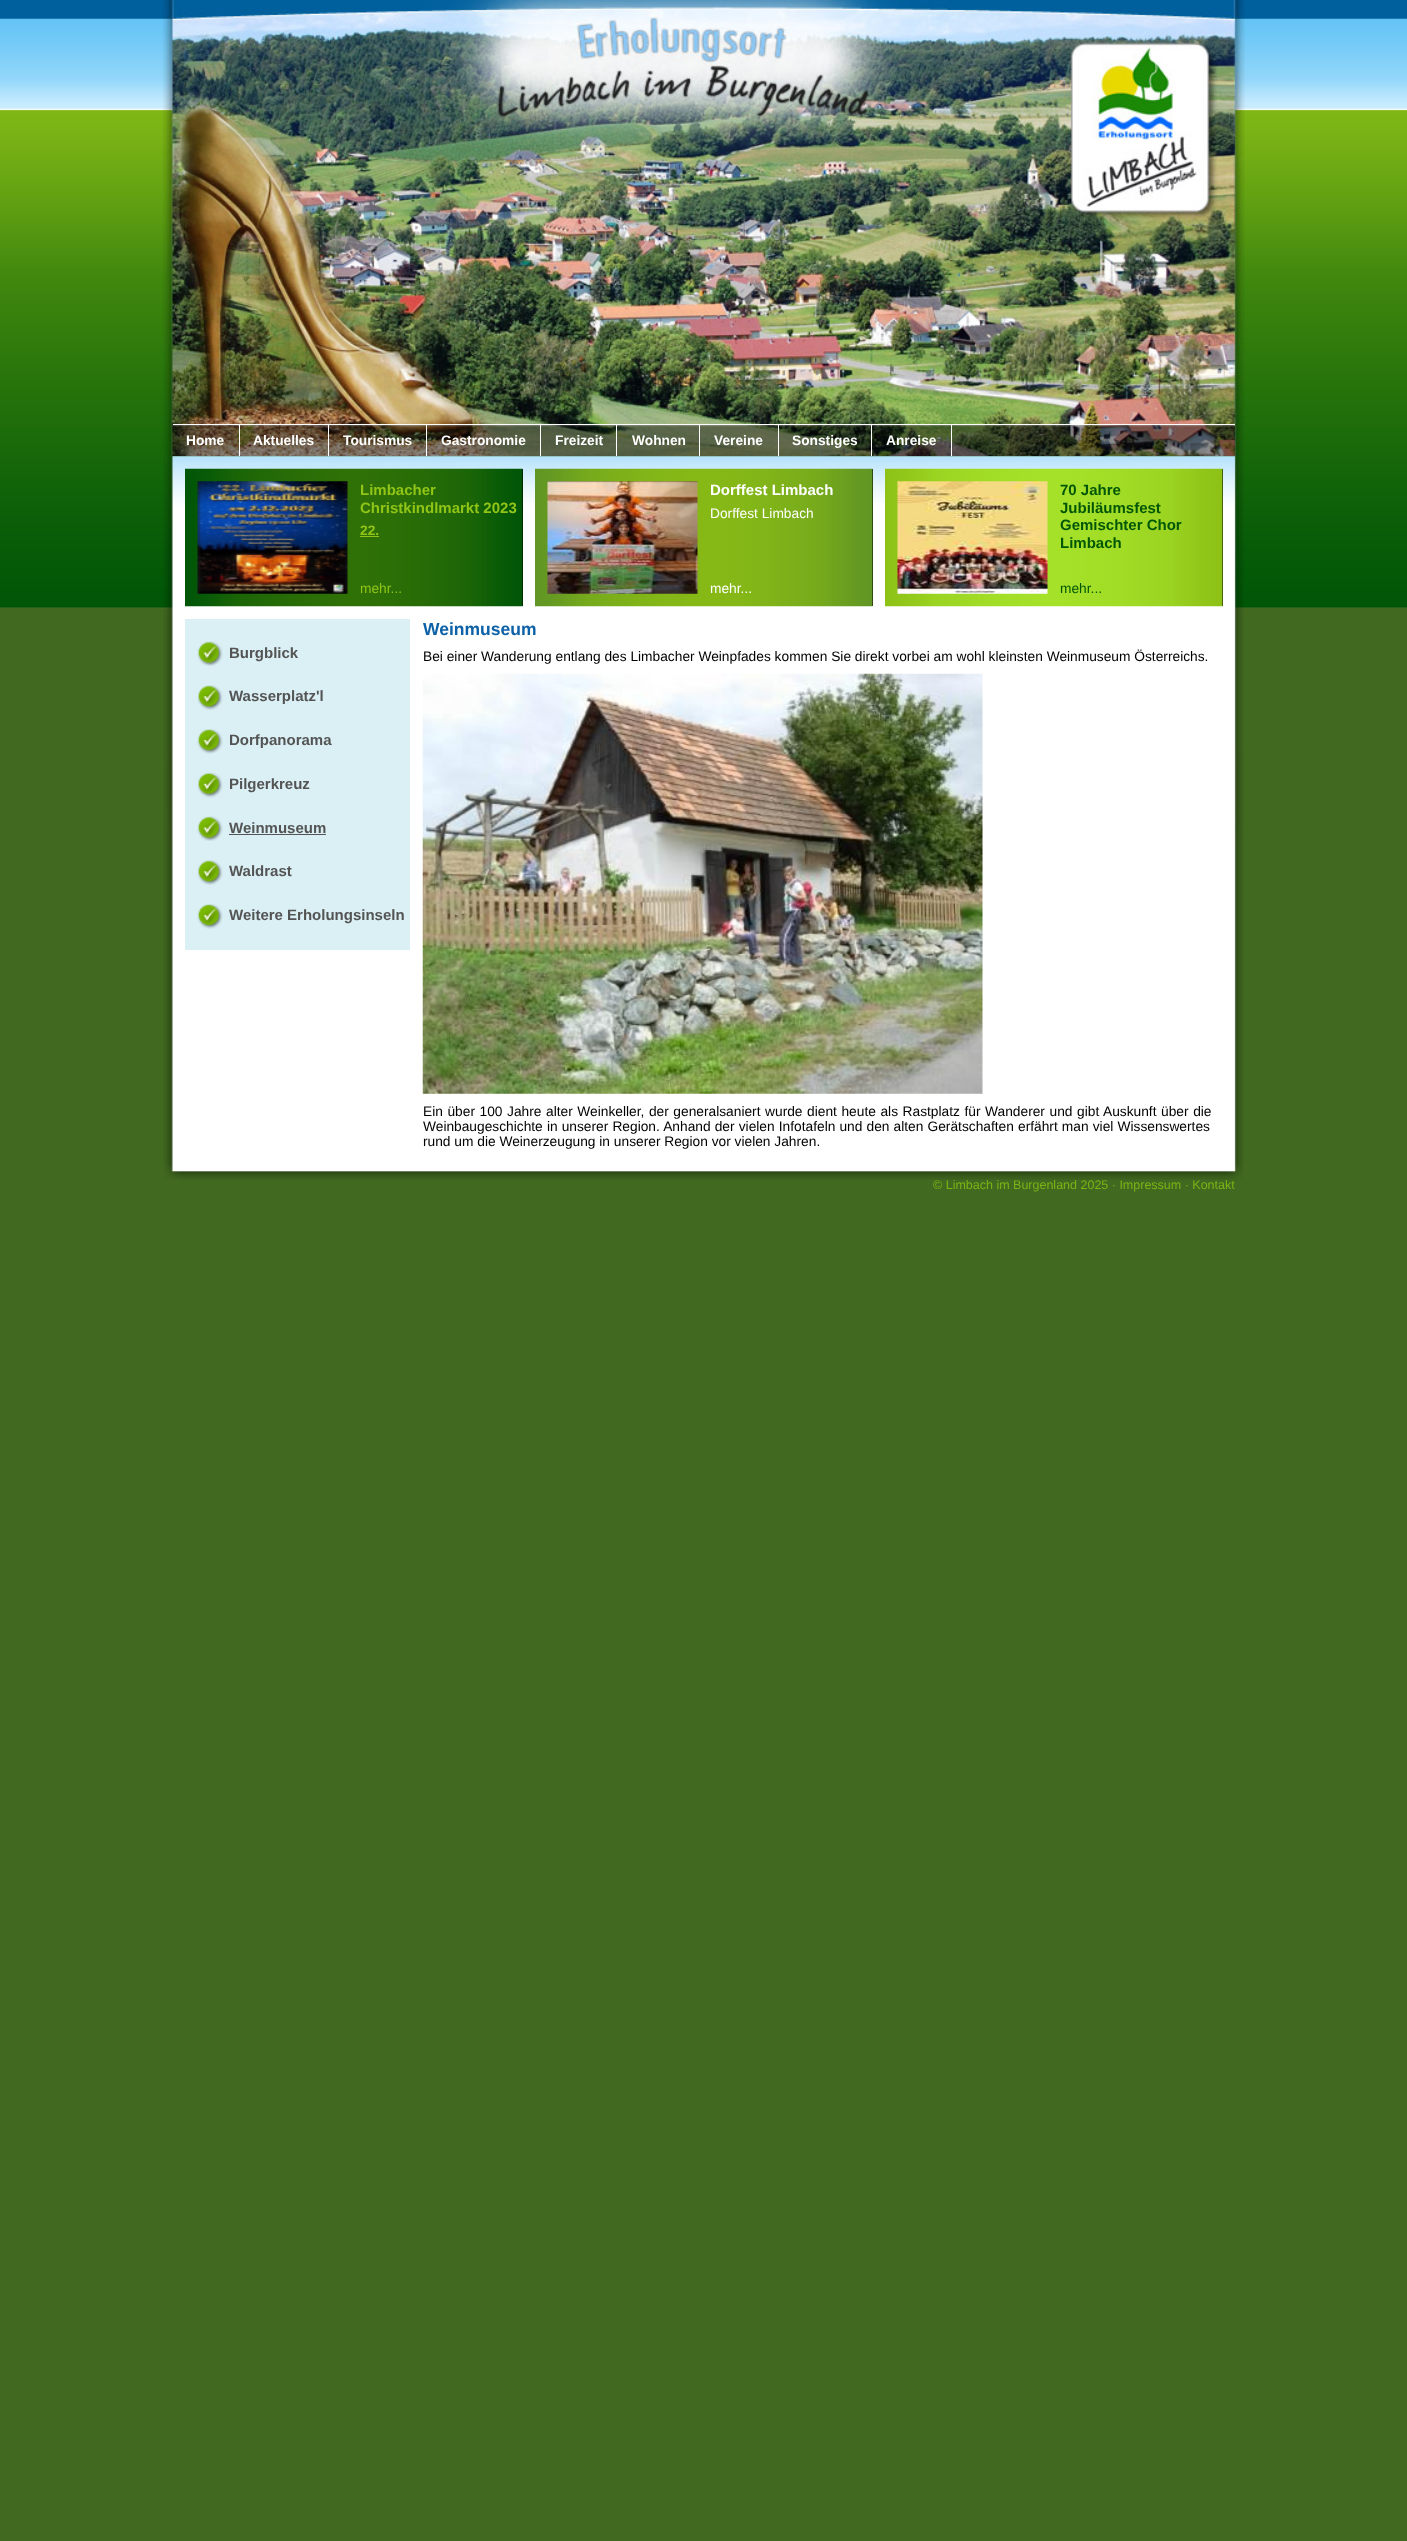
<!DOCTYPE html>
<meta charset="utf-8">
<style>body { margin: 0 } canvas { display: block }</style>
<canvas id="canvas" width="1407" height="2541"></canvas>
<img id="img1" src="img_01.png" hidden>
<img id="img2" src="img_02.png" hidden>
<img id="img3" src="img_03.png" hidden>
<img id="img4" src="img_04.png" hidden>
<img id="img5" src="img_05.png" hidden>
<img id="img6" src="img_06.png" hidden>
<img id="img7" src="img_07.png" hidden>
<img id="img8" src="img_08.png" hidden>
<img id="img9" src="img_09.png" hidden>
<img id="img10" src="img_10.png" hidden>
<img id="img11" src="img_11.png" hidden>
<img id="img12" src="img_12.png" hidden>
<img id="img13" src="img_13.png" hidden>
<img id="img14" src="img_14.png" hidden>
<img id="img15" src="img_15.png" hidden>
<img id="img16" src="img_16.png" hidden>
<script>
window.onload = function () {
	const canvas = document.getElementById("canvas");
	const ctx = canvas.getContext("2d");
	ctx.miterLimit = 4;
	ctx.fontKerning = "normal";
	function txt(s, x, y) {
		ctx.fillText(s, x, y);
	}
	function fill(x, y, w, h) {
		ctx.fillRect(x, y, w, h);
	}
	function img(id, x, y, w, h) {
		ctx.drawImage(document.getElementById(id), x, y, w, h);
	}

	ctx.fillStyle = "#416920";
	fill(0, 0, 1407, 2541);
	img("img1", 0, 0, 1407, 608);
	img("img2", 162, 0, 1083, 457);
	img("img3", 172, 425, 1063, 32);
	ctx.fillStyle = "#FFFFFF";
	fill(173, 424, 1062, 1);
	fill(239, 425, 1, 31);
	fill(328, 425, 1, 31);
	fill(426, 425, 1, 31);
	fill(540, 425, 1, 31);
	fill(616, 425, 1, 31);
	fill(699, 425, 1, 31);
	fill(778, 425, 1, 31);
	fill(871, 425, 1, 31);
	fill(951, 425, 1, 31);
	img("img4", 163, 456, 1081, 709);
	ctx.fillStyle = "#000000";
	fill(522, 469, 1, 137);
	img("img5", 185, 468, 338, 139);
	img("img6", 197, 481, 151, 113);
	ctx.fillStyle = "#90C518";
	fill(360, 536, 19, 1);
	ctx.fillStyle = "#000000";
	fill(872, 469, 1, 137);
	img("img7", 535, 468, 338, 139);
	img("img8", 547, 481, 151, 113);
	fill(1222, 469, 1, 137);
	img("img9", 885, 468, 338, 139);
	img("img10", 897, 481, 151, 113);
	ctx.fillStyle = "#DAF0F5";
	fill(185, 619, 225, 331);
	img("img11", 197, 641, 26, 25);
	img("img12", 197, 685, 26, 25);
	img("img13", 197, 729, 26, 25);
	img("img14", 197, 772, 26, 26);
	img("img11", 197, 816, 26, 25);
	ctx.fillStyle = "#545454";
	fill(229, 834, 97, 1);
	img("img12", 197, 860, 26, 25);
	img("img13", 197, 904, 26, 25);
	img("img15", 422, 673, 561, 421);
	img("img16", 164, 1165, 1079, 15);
	ctx.font = "bold 13.75px Liberation Sans";
	ctx.fillStyle = "#FFFFFF";
	txt("Home", 186, 445);
	txt("Aktuelles", 253, 445);
	txt("Tourismus", 343, 445);
	txt("Gastronomie", 441, 445);
	txt("Freizeit", 555, 445);
	txt("Wohnen", 632, 445);
	txt("Vereine", 714, 445);
	txt("Sonstiges", 792, 445);
	txt("Anreise", 886, 445);
	ctx.font = "bold 15px Liberation Sans";
	ctx.fillStyle = "#90C518";
	txt("Limbacher", 360, 495);
	txt("Christkindlmarkt 2023", 360, 513);
	ctx.font = "bold 13.75px Liberation Sans";
	txt("22.", 360, 535);
	ctx.font = "13.75px Liberation Sans";
	txt("mehr...", 360, 593);
	ctx.font = "bold 15px Liberation Sans";
	ctx.fillStyle = "#FFFFFF";
	txt("Dorffest Limbach", 710, 495);
	ctx.font = "13.75px Liberation Sans";
	txt("Dorffest Limbach", 710, 518);
	txt("mehr...", 710, 593);
	ctx.font = "bold 15px Liberation Sans";
	ctx.fillStyle = "#025707";
	txt("70 Jahre", 1060, 495);
	txt("Jubiläumsfest", 1060, 513);
	txt("Gemischter Chor", 1060, 530);
	txt("Limbach", 1060, 548);
	ctx.font = "13.75px Liberation Sans";
	txt("mehr...", 1060, 593);
	ctx.font = "bold 15px Liberation Sans";
	ctx.fillStyle = "#545454";
	txt("Burgblick", 229, 658);
	txt("Wasserplatz'l", 229, 701);
	txt("Dorfpanorama", 229, 745);
	txt("Pilgerkreuz", 229, 789);
	txt("Weinmuseum", 229, 833);
	txt("Waldrast", 229, 876);
	txt("Weitere Erholungsinseln", 229, 920);
	ctx.font = "bold 17.5px Liberation Sans";
	ctx.fillStyle = "#0D61A7";
	txt("Weinmuseum", 423, 635);
	ctx.font = "13.75px Liberation Sans";
	ctx.fillStyle = "#000000";
	txt("Bei einer Wanderung entlang des Limbacher Weinpfades kommen Sie direkt vorbei am wohl kleinsten Weinmuseum Österreichs.", 423, 661);
	ctx.wordSpacing = "0.75px";
	txt("Ein über 100 Jahre alter Weinkeller, der generalsaniert wurde dient heute als Rastplatz für Wanderer und gibt Auskunft über die", 423, 1116);
	ctx.wordSpacing = "0.3px";
	txt("Weinbaugeschichte in unserer Region. Anhand der vielen Infotafeln und den alten Gerätschaften erfährt man viel Wissenswertes", 423, 1131);
	ctx.wordSpacing = "0px";
	txt("rund um die Weinerzeugung in unserer Region vor vielen Jahren.", 423, 1146);
	ctx.font = "12.5px Liberation Sans";
	ctx.fillStyle = "#7BB415";
	txt("© Limbach im Burgenland 2025 · Impressum · Kontakt", 933, 1189);
};
</script>
